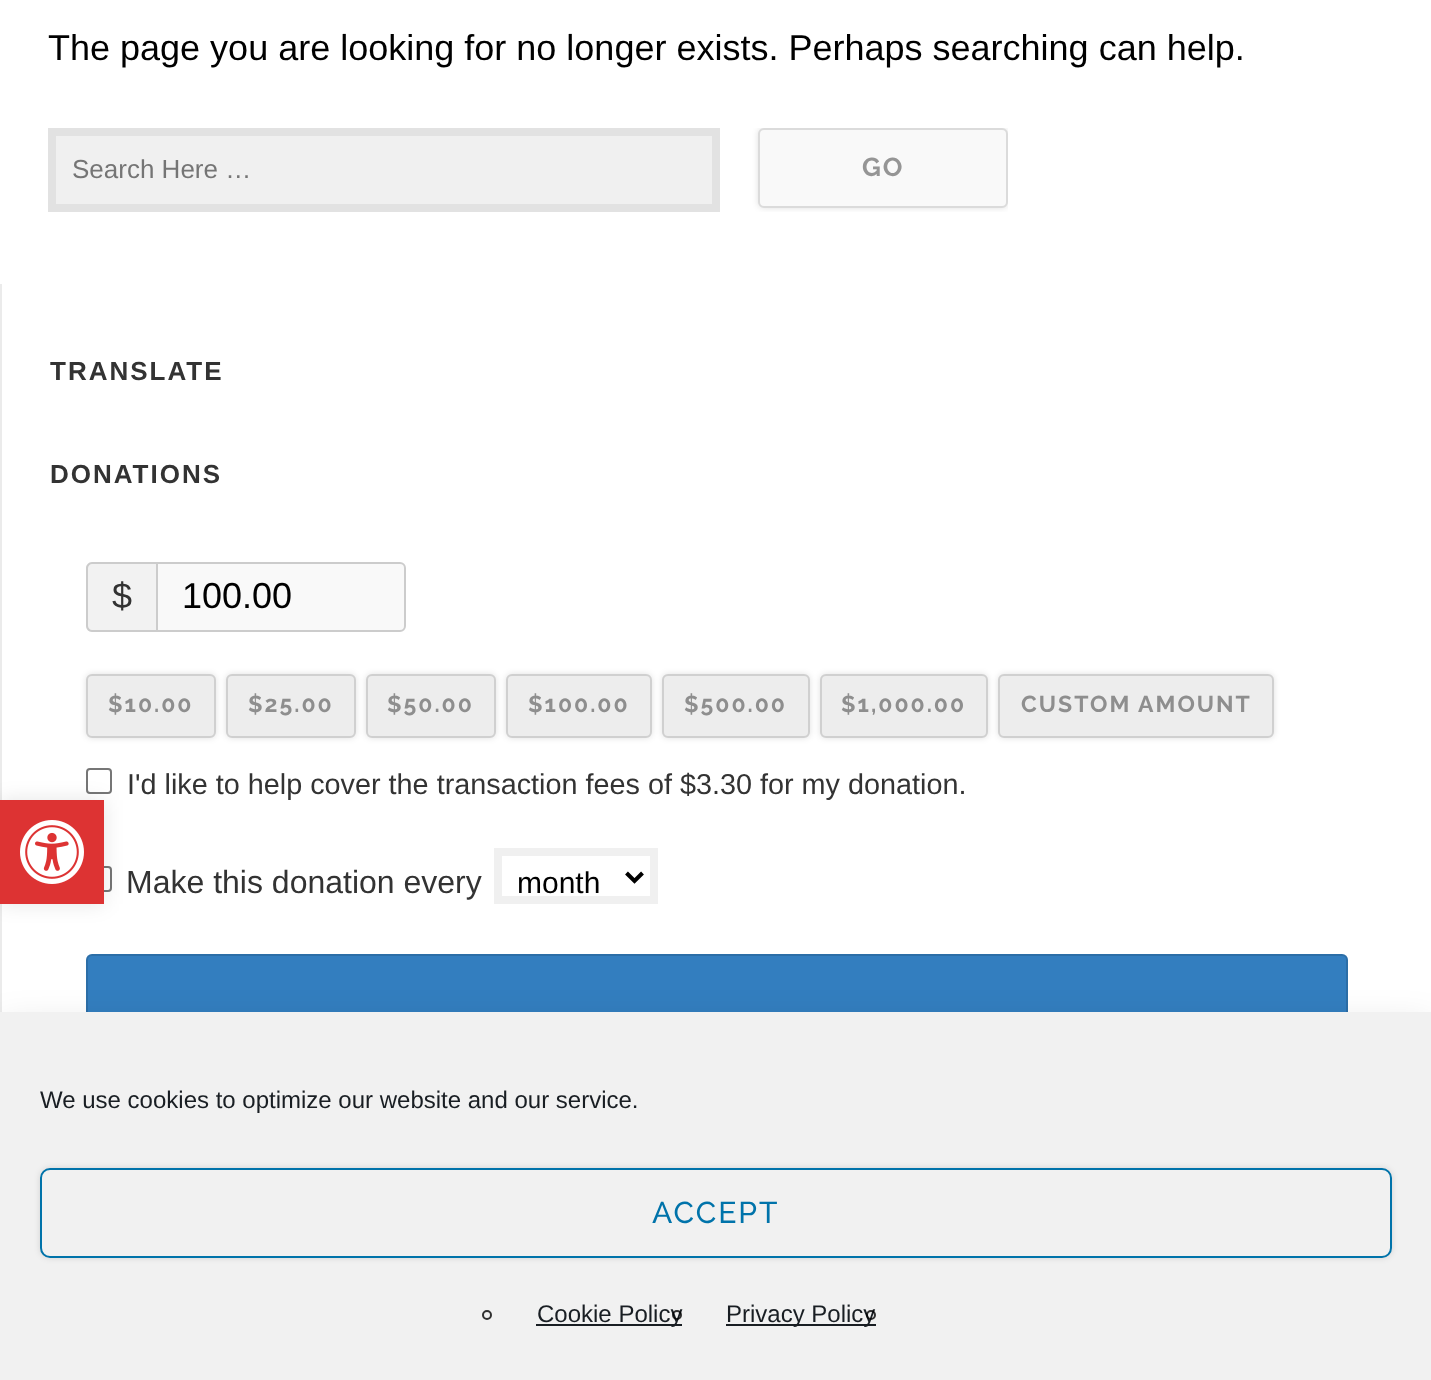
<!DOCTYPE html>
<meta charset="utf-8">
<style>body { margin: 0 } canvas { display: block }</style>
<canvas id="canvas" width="1431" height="1380"></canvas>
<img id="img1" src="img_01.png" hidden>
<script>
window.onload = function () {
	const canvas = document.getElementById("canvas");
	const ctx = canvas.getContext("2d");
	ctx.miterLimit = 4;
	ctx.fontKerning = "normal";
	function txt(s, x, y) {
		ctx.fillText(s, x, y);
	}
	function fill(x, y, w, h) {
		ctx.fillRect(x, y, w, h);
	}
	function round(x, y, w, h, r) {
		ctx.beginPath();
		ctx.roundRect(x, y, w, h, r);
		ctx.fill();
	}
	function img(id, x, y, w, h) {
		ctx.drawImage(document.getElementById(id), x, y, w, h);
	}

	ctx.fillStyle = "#FFFFFF";
	fill(0, 0, 1431, 1380);
	ctx.fillStyle = "#F0F0F0";
	ctx.beginPath();
	ctx.rect(52, 132, 664, 76);
	ctx.fill();
	ctx.strokeStyle = "#E2E2E2";
	ctx.lineWidth = 8;
	ctx.stroke();
	ctx.save();
	ctx.beginPath();
	ctx.rect(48, 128, 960, 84);
	ctx.clip();
	ctx.fillStyle = "rgba(0, 0, 0, 0.12)";
	ctx.filter = "blur(3px)";
	ctx.beginPath();
	ctx.roundRect(758, 128, 250, 80, 6);
	ctx.fill();
	ctx.filter = "none";
	ctx.restore();
	ctx.fillStyle = "#F9F9F9";
	ctx.beginPath();
	ctx.roundRect(759, 129, 248, 78, 5);
	ctx.fill();
	ctx.strokeStyle = "#DBDBDB";
	ctx.lineWidth = 2;
	ctx.stroke();
	ctx.fillStyle = "#EBEBEB";
	fill(0, 284, 2, 728);
	ctx.fillStyle = "#F2F2F2";
	ctx.beginPath();
	ctx.roundRect(86, 562, 70, 70, [6, 0, 0, 6]);
	ctx.fill();
	ctx.fillStyle = "#CCCCCC";
	ctx.beginPath();
	ctx.moveTo(92, 562);
	ctx.lineTo(156, 562);
	ctx.lineTo(156, 632);
	ctx.lineTo(92, 632);
	ctx.bezierCurveTo(89, 632, 86, 629, 86, 626);
	ctx.lineTo(86, 568);
	ctx.bezierCurveTo(86, 565, 89, 562, 92, 562);
	ctx.closePath();
	ctx.moveTo(92, 564);
	ctx.lineTo(156, 564);
	ctx.lineTo(156, 630);
	ctx.lineTo(92, 630);
	ctx.bezierCurveTo(90, 630, 88, 628, 88, 626);
	ctx.lineTo(88, 568);
	ctx.bezierCurveTo(88, 566, 90, 564, 92, 564);
	ctx.closePath();
	ctx.fill("evenodd");
	ctx.fillStyle = "#F9F9F9";
	ctx.beginPath();
	ctx.roundRect(157, 563, 248, 68, [0, 5, 5, 0]);
	ctx.fill();
	ctx.strokeStyle = "#CCCCCC";
	ctx.stroke();
	ctx.fillStyle = "rgba(0, 0, 0, 0.12)";
	ctx.filter = "blur(3px)";
	ctx.beginPath();
	ctx.roundRect(86, 674, 130, 64, 6);
	ctx.fill();
	ctx.filter = "none";
	ctx.fillStyle = "#EDEDED";
	round(86, 674, 130, 64, 6);
	ctx.beginPath();
	ctx.roundRect(87, 675, 128, 62, 5);
	ctx.strokeStyle = "rgba(0, 0, 0, 0.12)";
	ctx.stroke();
	ctx.fillStyle = "rgba(0, 0, 0, 0.12)";
	ctx.filter = "blur(3px)";
	ctx.beginPath();
	ctx.roundRect(226, 674, 130, 64, 6);
	ctx.fill();
	ctx.filter = "none";
	ctx.fillStyle = "#EDEDED";
	round(226, 674, 130, 64, 6);
	ctx.beginPath();
	ctx.roundRect(227, 675, 128, 62, 5);
	ctx.stroke();
	ctx.fillStyle = "rgba(0, 0, 0, 0.12)";
	ctx.filter = "blur(3px)";
	ctx.beginPath();
	ctx.roundRect(366, 674, 130, 64, 6);
	ctx.fill();
	ctx.filter = "none";
	ctx.fillStyle = "#EDEDED";
	round(366, 674, 130, 64, 6);
	ctx.beginPath();
	ctx.roundRect(367, 675, 128, 62, 5);
	ctx.stroke();
	ctx.fillStyle = "rgba(0, 0, 0, 0.12)";
	ctx.filter = "blur(3px)";
	ctx.beginPath();
	ctx.roundRect(506, 674, 146, 64, 6);
	ctx.fill();
	ctx.filter = "none";
	ctx.fillStyle = "#EDEDED";
	round(506, 674, 146, 64, 6);
	ctx.beginPath();
	ctx.roundRect(507, 675, 144, 62, 5);
	ctx.stroke();
	ctx.fillStyle = "rgba(0, 0, 0, 0.12)";
	ctx.filter = "blur(3px)";
	ctx.beginPath();
	ctx.roundRect(662, 674, 148, 64, 6);
	ctx.fill();
	ctx.filter = "none";
	ctx.fillStyle = "#EDEDED";
	round(662, 674, 148, 64, 6);
	ctx.beginPath();
	ctx.roundRect(663, 675, 146, 62, 5);
	ctx.stroke();
	ctx.fillStyle = "rgba(0, 0, 0, 0.12)";
	ctx.filter = "blur(3px)";
	ctx.beginPath();
	ctx.roundRect(820, 674, 168, 64, 6);
	ctx.fill();
	ctx.filter = "none";
	ctx.fillStyle = "#EDEDED";
	round(820, 674, 168, 64, 6);
	ctx.beginPath();
	ctx.roundRect(821, 675, 166, 62, 5);
	ctx.stroke();
	ctx.fillStyle = "rgba(0, 0, 0, 0.12)";
	ctx.filter = "blur(3px)";
	ctx.beginPath();
	ctx.roundRect(998, 674, 276, 64, 6);
	ctx.fill();
	ctx.filter = "none";
	ctx.fillStyle = "#EDEDED";
	round(998, 674, 276, 64, 6);
	ctx.beginPath();
	ctx.roundRect(999, 675, 274, 62, 5);
	ctx.stroke();
	ctx.beginPath();
	ctx.roundRect(87, 769, 24, 24, 3);
	ctx.strokeStyle = "#767676";
	ctx.stroke();
	ctx.beginPath();
	ctx.roundRect(87, 867, 24, 24, 3);
	ctx.stroke();
	ctx.strokeStyle = "#F0F0F0";
	ctx.lineWidth = 8;
	ctx.strokeRect(498, 852, 156, 48);
	ctx.beginPath();
	ctx.moveTo(626.5, 873);
	ctx.lineTo(634.5, 881);
	ctx.lineTo(642.5, 873);
	ctx.strokeStyle = "#000000";
	ctx.lineWidth = 4;
	ctx.stroke();
	ctx.fillStyle = "#337EBF";
	round(86, 954, 1262, 118, 6);
	ctx.beginPath();
	ctx.roundRect(87, 955, 1260, 116, 5);
	ctx.strokeStyle = "rgba(0, 0, 0, 0.12)";
	ctx.lineWidth = 2;
	ctx.stroke();
	ctx.fillStyle = "rgba(0, 0, 0, 0.1)";
	ctx.filter = "blur(10px)";
	ctx.beginPath();
	ctx.rect(0, 800, 104, 104);
	ctx.fill();
	ctx.filter = "none";
	ctx.fillStyle = "#DD3333";
	fill(0, 800, 104, 104);
	img("img1", 20, 820, 64, 64);
	ctx.fillStyle = "rgba(0, 0, 0, 0.19)";
	ctx.filter = "blur(20px)";
	ctx.beginPath();
	ctx.rect(0, 1032, 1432, 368);
	ctx.fill();
	ctx.filter = "none";
	ctx.fillStyle = "#F1F1F1";
	fill(0, 1012, 1431, 368);
	ctx.fillStyle = "rgba(0, 0, 0, 0.12)";
	ctx.filter = "blur(3px)";
	ctx.beginPath();
	ctx.roundRect(40, 1168, 1352, 90, 10);
	ctx.fill();
	ctx.filter = "none";
	ctx.fillStyle = "#F1F1F1";
	ctx.beginPath();
	ctx.roundRect(41, 1169, 1350, 88, 9);
	ctx.fill();
	ctx.strokeStyle = "#0073AA";
	ctx.stroke();
	ctx.beginPath();
	ctx.arc(487, 1315, 4, 0, Math.PI * 2);
	ctx.strokeStyle = "#303030";
	ctx.stroke();
	ctx.fillStyle = "#191E23";
	fill(536, 1324, 146, 2);
	fill(726, 1324, 150, 2);
	ctx.font = "36px Liberation Sans";
	ctx.fillStyle = "#000000";
	txt("The page you are looking for no longer exists. Perhaps searching can help.", 48, 60);
	ctx.font = "26px Liberation Sans";
	ctx.fillStyle = "#757575";
	txt("Search Here …", 72, 178);
	ctx.letterSpacing = "2px";
	ctx.font = "bold 26px Raleway";
	ctx.fillStyle = "#959595";
	txt("GO", 862, 176);
	ctx.font = "bold 26px Liberation Sans";
	ctx.fillStyle = "#333333";
	txt("TRANSLATE", 50, 380);
	txt("DONATIONS", 50, 483);
	ctx.letterSpacing = "0px";
	ctx.font = "36px Liberation Sans";
	txt("$", 112, 608);
	ctx.fillStyle = "#000000";
	txt("100.00", 182, 608);
	ctx.letterSpacing = "2px";
	ctx.font = "bold 23px Raleway";
	ctx.fillStyle = "#8E8E8E";
	txt("$10.00", 108, 712);
	txt("$25.00", 248, 712);
	txt("$50.00", 387, 712);
	txt("$100.00", 528, 712);
	txt("$500.00", 684, 712);
	txt("$1,000.00", 841, 712);
	txt("CUSTOM AMOUNT", 1021, 712);
	ctx.letterSpacing = "0px";
	ctx.font = "28.8px Liberation Sans";
	ctx.fillStyle = "#333333";
	txt("I'd like to help cover the transaction fees of $3.30 for my donation.", 127, 794);
	ctx.font = "32px Liberation Sans";
	txt("Make this donation every", 126, 893);
	ctx.font = "30px Liberation Sans";
	ctx.fillStyle = "#000000";
	txt("month", 517, 893);
	ctx.font = "24px Liberation Sans";
	ctx.fillStyle = "#191E23";
	txt("We use cookies to optimize our website and our service.", 40, 1108);
	ctx.letterSpacing = "2px";
	ctx.font = "500 30px Raleway";
	ctx.fillStyle = "#0073AA";
	txt("ACCEPT", 652, 1223);
	ctx.letterSpacing = "0px";
	ctx.font = "24px Liberation Sans";
	ctx.fillStyle = "#191E23";
	txt("Cookie Policy", 537, 1322);
	ctx.beginPath();
	ctx.arc(677, 1315, 4, 0, Math.PI * 2);
	ctx.strokeStyle = "rgba(0, 0, 0, 0.8)";
	ctx.stroke();
	txt("Privacy Policy", 726, 1322);
	ctx.beginPath();
	ctx.arc(871, 1315, 4, 0, Math.PI * 2);
	ctx.stroke();
};
</script>
